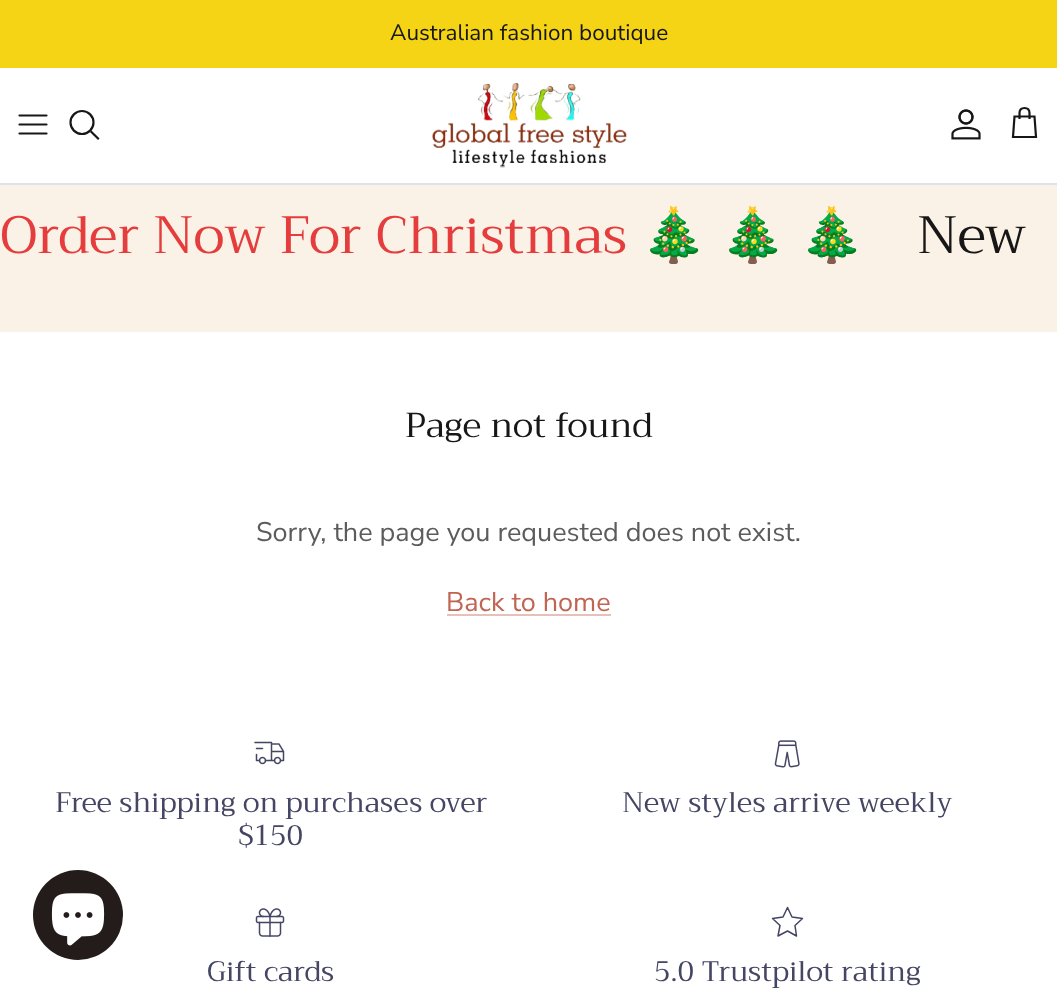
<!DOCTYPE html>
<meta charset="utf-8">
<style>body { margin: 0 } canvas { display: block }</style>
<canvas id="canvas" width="1057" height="991"></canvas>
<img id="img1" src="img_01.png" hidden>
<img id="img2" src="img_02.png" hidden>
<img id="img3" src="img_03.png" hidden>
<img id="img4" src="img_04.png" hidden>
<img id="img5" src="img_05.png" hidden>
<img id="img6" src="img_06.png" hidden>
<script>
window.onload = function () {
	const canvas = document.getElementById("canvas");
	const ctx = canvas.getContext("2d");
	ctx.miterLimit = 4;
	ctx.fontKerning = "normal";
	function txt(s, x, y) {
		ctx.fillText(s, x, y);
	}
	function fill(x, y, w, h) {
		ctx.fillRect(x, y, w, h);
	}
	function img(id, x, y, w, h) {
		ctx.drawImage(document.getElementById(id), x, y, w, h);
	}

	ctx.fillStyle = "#FFFFFF";
	fill(0, 0, 1057, 991);
	ctx.fillStyle = "#F5D415";
	fill(0, 0, 1057, 68);
	ctx.fillStyle = "#DFE3E8";
	fill(0, 183, 1057, 2);
	ctx.beginPath();
	ctx.moveTo(19.5, 124.5);
	ctx.lineTo(46.5, 124.5);
	ctx.moveTo(19.5, 115.5);
	ctx.lineTo(46.5, 115.5);
	ctx.moveTo(19.5, 133.5);
	ctx.lineTo(46.5, 133.5);
	ctx.strokeStyle = "#171717";
	ctx.lineWidth = 2.2;
	ctx.lineCap = "round";
	ctx.lineJoin = "round";
	ctx.stroke();
	ctx.beginPath();
	ctx.arc(82, 122.5, 11.5, 0, Math.PI * 2);
	ctx.stroke();
	ctx.beginPath();
	ctx.moveTo(91.5, 132);
	ctx.lineTo(98, 138.5);
	ctx.lineCap = "square";
	ctx.lineJoin = "miter";
	ctx.stroke();
	img("img1", 432, 83, 195, 85);
	img("img2", 951, 109, 30, 31);
	ctx.beginPath();
	ctx.moveTo(1029.5, 119);
	ctx.lineTo(1029.5, 113);
	ctx.bezierCurveTo(1029.5, 110, 1027.5, 108, 1024.5, 108);
	ctx.bezierCurveTo(1021.5, 108, 1019.5, 110, 1019.5, 113);
	ctx.lineTo(1019.5, 119);
	ctx.moveTo(1014.5, 116.5);
	ctx.lineTo(1034.5, 116.5);
	ctx.lineTo(1036, 137);
	ctx.lineTo(1013, 137);
	ctx.closePath();
	ctx.lineCap = "butt";
	ctx.stroke();
	ctx.fillStyle = "#FAF2E6";
	fill(0, 185, 1057, 147);
	ctx.fillStyle = "#E6C1BA";
	fill(447, 614, 164, 2);
	img("img3", 254, 741, 31, 24);
	img("img4", 774, 740, 26, 28);
	img("img5", 255, 908, 30, 29);
	ctx.beginPath();
	ctx.moveTo(787.5, 931);
	ctx.lineTo(778, 936);
	ctx.lineTo(780, 925.5);
	ctx.lineTo(772.5, 918.5);
	ctx.lineTo(783, 917);
	ctx.lineTo(787.5, 907.5);
	ctx.lineTo(792, 917);
	ctx.lineTo(802.5, 918.5);
	ctx.lineTo(795, 925.5);
	ctx.lineTo(796.5, 936);
	ctx.closePath();
	ctx.strokeStyle = "#454564";
	ctx.lineWidth = 1.5;
	ctx.lineCap = "round";
	ctx.lineJoin = "round";
	ctx.stroke();
	ctx.fillStyle = "#241B1B";
	ctx.beginPath();
	ctx.arc(78, 915, 45, 0, Math.PI * 2);
	ctx.fill();
	img("img6", 51, 893, 54, 53);
	ctx.font = "22.5px Nunito Sans";
	ctx.fillStyle = "#171717";
	txt("Australian fashion boutique", 390, 40);
	ctx.font = "52.5px Trirong";
	ctx.fillStyle = "#E53D3D";
	txt("Order Now For Christmas", 0, 253);
	ctx.font = "52.5px Noto Color Emoji";
	txt("🎄", 641, 253);
	txt("🎄", 720, 253);
	txt("🎄", 799, 253);
	ctx.font = "52.5px Trirong";
	ctx.fillStyle = "#171717";
	txt("New", 917, 253);
	ctx.font = "34.5px Trirong";
	txt("Page not found", 405, 437);
	ctx.font = "27px Nunito Sans";
	ctx.fillStyle = "#5C5C5C";
	txt("Sorry, the page you requested does not exist.", 256, 541);
	ctx.fillStyle = "#C16452";
	txt("Back to home", 446, 611);
	ctx.font = "28.25px Trirong";
	ctx.fillStyle = "#454564";
	txt("Free shipping on purchases over", 55, 812);
	txt("$150", 238, 845);
	txt("New styles arrive weekly", 622, 812);
	txt("Gift cards", 207, 981);
	txt("5.0 Trustpilot rating", 654, 981);
};
</script>
